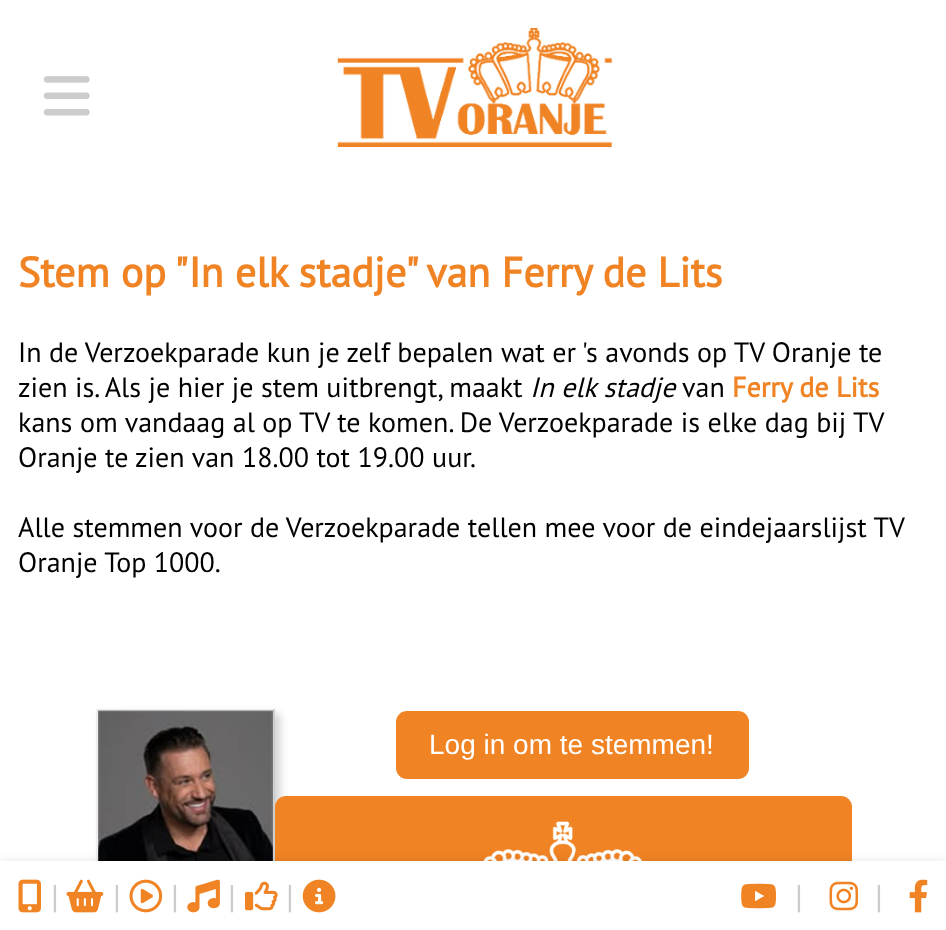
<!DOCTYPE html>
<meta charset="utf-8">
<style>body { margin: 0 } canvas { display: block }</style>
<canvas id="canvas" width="946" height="930"></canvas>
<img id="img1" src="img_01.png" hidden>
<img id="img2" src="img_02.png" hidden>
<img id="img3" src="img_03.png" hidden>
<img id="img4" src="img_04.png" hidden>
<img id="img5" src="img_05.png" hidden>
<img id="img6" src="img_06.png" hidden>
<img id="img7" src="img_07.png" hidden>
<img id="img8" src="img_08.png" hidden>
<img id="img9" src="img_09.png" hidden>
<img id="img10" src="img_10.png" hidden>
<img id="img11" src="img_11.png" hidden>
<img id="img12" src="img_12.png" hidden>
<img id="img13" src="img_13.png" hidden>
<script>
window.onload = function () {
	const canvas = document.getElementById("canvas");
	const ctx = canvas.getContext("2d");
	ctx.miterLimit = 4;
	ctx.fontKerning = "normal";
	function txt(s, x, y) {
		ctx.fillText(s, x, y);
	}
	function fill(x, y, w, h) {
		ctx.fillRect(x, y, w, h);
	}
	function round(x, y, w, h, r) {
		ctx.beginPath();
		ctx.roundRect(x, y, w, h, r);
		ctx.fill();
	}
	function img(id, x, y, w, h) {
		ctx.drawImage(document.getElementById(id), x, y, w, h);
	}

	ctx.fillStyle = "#FFFFFF";
	fill(0, 0, 946, 930);
	img("img1", 43, 76, 47, 40);
	img("img2", 337, 28, 275, 119);
	ctx.fillStyle = "rgba(0, 0, 0, 0.18)";
	ctx.filter = "blur(4.5px)";
	ctx.beginPath();
	ctx.rect(102, 714, 178, 179);
	ctx.fill();
	ctx.filter = "none";
	ctx.fillStyle = "#EEEEEE";
	fill(96, 709, 179, 2);
	fill(96, 709, 2, 152);
	img("img3", 98, 710, 175, 151);
	ctx.fillStyle = "#CECECE";
	fill(273, 709, 2, 152);
	ctx.fillStyle = "#F08324";
	round(396, 711, 353, 68, 11);
	round(275, 796, 577, 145, 11);
	img("img4", 483, 821, 159, 40);
	ctx.fillStyle = "rgba(0, 0, 0, 0.1)";
	ctx.filter = "blur(5px)";
	ctx.beginPath();
	ctx.rect(0, 861, 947, 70);
	ctx.fill();
	ctx.filter = "none";
	ctx.fillStyle = "#FFFFFF";
	fill(0, 861, 946, 69);
	img("img5", 18, 879, 23, 34);
	img("img6", 66, 879, 38, 34);
	img("img7", 129, 879, 34, 34);
	img("img8", 187, 879, 33, 34);
	img("img9", 245, 881, 33, 30);
	img("img10", 302, 879, 34, 34);
	img("img11", 741, 883, 36, 26);
	img("img12", 829, 881, 30, 30);
	img("img13", 909, 879, 19, 34);
	ctx.font = "bold 42px PT Sans";
	ctx.fillStyle = "#F08324";
	txt("Stem op \"In elk stadje", 18, 287);
	txt("\" van Ferry de Lits", 405, 287);
	ctx.font = "28px PT Sans";
	ctx.fillStyle = "#000000";
	txt("In de Verzoekparade kun je zelf bepalen wat er 's avonds op TV Oranje te", 18, 362);
	txt("zien is. Als je hier je stem uitbrengt, maakt", 18, 397);
	ctx.font = "italic 28px PT Sans";
	txt("In elk stadje", 530, 397);
	ctx.font = "28px PT Sans";
	txt("van", 682, 397);
	ctx.font = "bold 28px PT Sans";
	ctx.fillStyle = "#F08324";
	txt("Ferry de Lits", 732, 397);
	ctx.font = "28px PT Sans";
	ctx.fillStyle = "#000000";
	txt("kans om vandaag al op TV te komen. De Verzoekparade is elke dag bij TV", 18, 432);
	txt("Oranje te zien van 18.00 tot 19.00 uur.", 18, 467);
	txt("Alle stemmen voor de Verzoekparade tellen mee voor de eindejaarslijst TV", 18, 537);
	txt("Oranje Top 1000.", 18, 572);
	ctx.font = "28px Liberation Sans";
	ctx.fillStyle = "#FFFFFF";
	txt("Log in om te stemmen!", 429, 754);
	ctx.font = "33px PT Sans";
	ctx.fillStyle = "#CCCCCC";
	txt("|", 51, 908);
	txt("|", 113, 908);
	txt("|", 171, 908);
	txt("|", 228, 908);
	txt("|", 286, 908);
	txt("|", 795, 908);
	txt("|", 875, 908);
};
</script>
